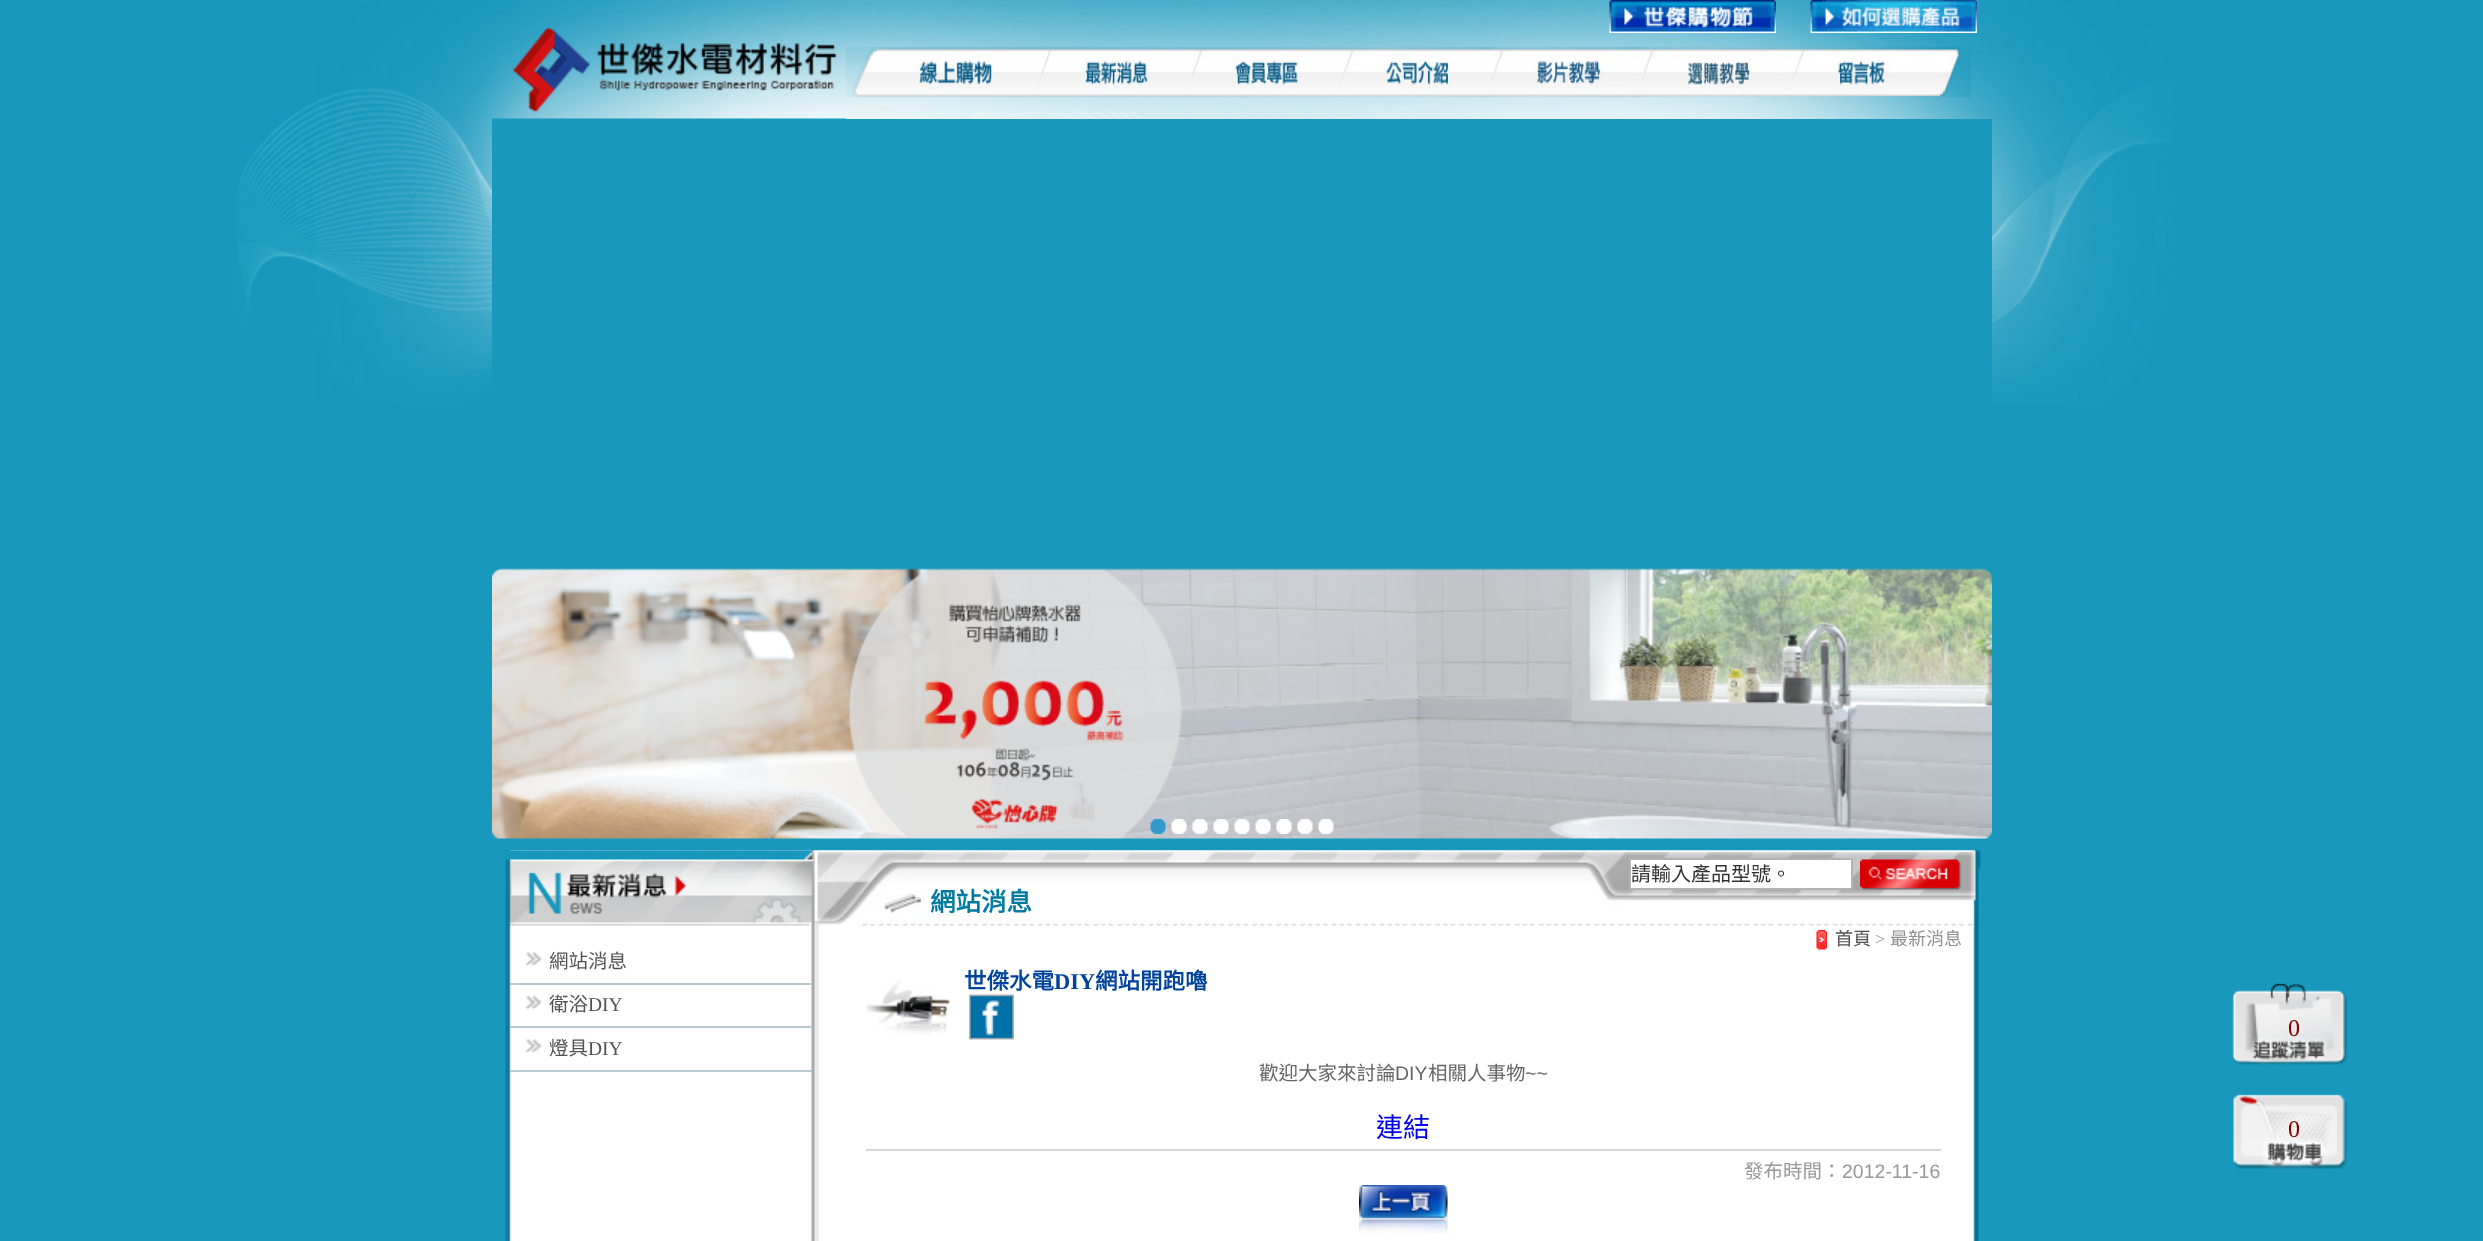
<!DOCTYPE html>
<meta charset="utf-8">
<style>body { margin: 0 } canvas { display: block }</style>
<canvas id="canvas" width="2483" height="1241"></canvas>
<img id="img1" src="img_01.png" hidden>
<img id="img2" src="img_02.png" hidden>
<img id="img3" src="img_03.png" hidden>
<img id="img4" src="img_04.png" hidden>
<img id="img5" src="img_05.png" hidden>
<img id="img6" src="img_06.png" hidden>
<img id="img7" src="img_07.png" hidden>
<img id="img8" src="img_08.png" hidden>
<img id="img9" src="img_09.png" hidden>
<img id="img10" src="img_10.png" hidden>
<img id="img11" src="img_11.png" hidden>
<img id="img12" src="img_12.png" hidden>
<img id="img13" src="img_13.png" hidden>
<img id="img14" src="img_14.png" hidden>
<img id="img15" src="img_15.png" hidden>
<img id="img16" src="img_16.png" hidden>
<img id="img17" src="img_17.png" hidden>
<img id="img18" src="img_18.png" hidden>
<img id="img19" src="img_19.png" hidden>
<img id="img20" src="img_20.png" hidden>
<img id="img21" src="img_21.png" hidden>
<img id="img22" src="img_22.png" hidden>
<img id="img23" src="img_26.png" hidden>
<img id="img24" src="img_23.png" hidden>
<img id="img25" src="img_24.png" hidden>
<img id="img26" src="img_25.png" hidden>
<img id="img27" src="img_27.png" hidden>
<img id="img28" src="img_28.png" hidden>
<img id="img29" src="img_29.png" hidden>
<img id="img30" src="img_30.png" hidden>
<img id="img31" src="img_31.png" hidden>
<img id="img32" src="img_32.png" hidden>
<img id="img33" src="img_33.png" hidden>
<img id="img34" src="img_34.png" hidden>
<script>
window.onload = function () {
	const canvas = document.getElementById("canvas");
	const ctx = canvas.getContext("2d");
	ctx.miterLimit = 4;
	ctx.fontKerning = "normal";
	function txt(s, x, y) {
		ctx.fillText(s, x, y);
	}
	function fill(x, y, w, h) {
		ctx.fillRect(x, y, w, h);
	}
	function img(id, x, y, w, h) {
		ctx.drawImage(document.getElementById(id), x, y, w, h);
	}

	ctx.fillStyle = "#1898BD";
	fill(0, 0, 2483, 1241);
	img("img1", 236, 0, 1937, 404);
	fill(492, 118, 354, 1);
	img("img2", 492, 0, 354, 119);
	img("img3", 1609, 0, 167, 33);
	img("img4", 1810, 0, 167, 33);
	img("img5", 846, 46, 195, 52);
	img("img6", 1041, 46, 150, 52);
	img("img7", 1191, 47, 150, 51);
	img("img8", 1341, 46, 150, 52);
	img("img9", 1491, 46, 150, 52);
	img("img10", 1641, 46, 150, 52);
	img("img11", 1791, 46, 180, 52);
	fill(492, 119, 1500, 285);
	img("img12", 492, 568, 1500, 271);
	img("img13", 1150, 819, 16, 15);
	img("img14", 1171, 819, 16, 15);
	img("img15", 1192, 819, 16, 15);
	img("img16", 1213, 819, 16, 15);
	img("img17", 1234, 819, 16, 15);
	img("img18", 1255, 819, 16, 15);
	img("img19", 1276, 819, 16, 15);
	img("img20", 1297, 819, 16, 15);
	img("img21", 1318, 819, 16, 15);
	img("img22", 505, 850, 1474, 391);
	img("img23", 814, 850, 1168, 76);
	img("img24", 505, 850, 310, 76);
	ctx.fillStyle = "#B9CAD5";
	fill(510, 983, 302, 2);
	img("img25", 525, 952, 17, 15);
	fill(510, 1026, 302, 2);
	img("img26", 525, 995, 17, 15);
	fill(510, 1070, 302, 2);
	img("img25", 525, 1039, 17, 15);
	ctx.fillStyle = "#FFFFFF";
	ctx.beginPath();
	ctx.rect(1630, 859, 222, 30);
	ctx.fill();
	ctx.strokeStyle = "#B2B2B2";
	ctx.lineWidth = 2;
	ctx.stroke();
	img("img27", 1860, 859, 101, 31);
	img("img28", 883, 894, 38, 19);
	img("img29", 1816, 930, 11, 20);
	img("img30", 867, 980, 84, 55);
	img("img31", 969, 994, 45, 46);
	ctx.fillStyle = "#D6D6D6";
	fill(866, 1149, 1075, 2);
	img("img32", 1359, 1185, 89, 50);
	img("img33", 2232, 983, 116, 82);
	img("img34", 2233, 1094, 115, 75);
	ctx.font = "19.5px Noto Sans CJK TC";
	ctx.fillStyle = "#525252";
	txt("網站消息", 549, 968);
	txt("衛浴", 549, 1011);
	ctx.font = "19.5px Liberation Serif";
	txt("DIY", 588, 1011);
	ctx.font = "19.5px Noto Sans CJK TC";
	txt("燈具", 549, 1055);
	ctx.font = "19.5px Liberation Serif";
	txt("DIY", 588, 1055);
	ctx.font = "20px Noto Sans CJK TC";
	ctx.fillStyle = "#333333";
	txt("請輸入產品型號。", 1631, 881);
	ctx.font = "bold 25.5px Noto Sans CJK TC";
	ctx.fillStyle = "#007B9F";
	txt("網站消息", 930, 911);
	ctx.font = "18px Noto Sans CJK TC";
	ctx.fillStyle = "#525252";
	txt("首頁", 1835, 945);
	ctx.font = "18px Liberation Serif";
	ctx.fillStyle = "#909090";
	txt(">", 1875, 945);
	ctx.font = "18px Noto Sans CJK TC";
	txt("最新消息", 1890, 945);
	ctx.font = "bold 22.5px Noto Sans CJK TC";
	ctx.fillStyle = "#00439C";
	txt("世傑水電", 964, 989);
	ctx.font = "bold 22.5px Liberation Serif";
	txt("DIY", 1054, 989);
	ctx.font = "bold 22.5px Noto Sans CJK TC";
	txt("網站開跑嚕", 1095, 989);
	ctx.font = "19.5px Noto Sans CJK TC";
	ctx.fillStyle = "#666666";
	txt("歡迎大家來討論", 1259, 1080);
	ctx.font = "19.5px Liberation Sans";
	txt("DIY", 1395, 1080);
	ctx.font = "19.5px Noto Sans CJK TC";
	txt("相關人事物", 1428, 1080);
	ctx.font = "19.5px Liberation Sans";
	txt("~~", 1525, 1080);
	ctx.font = "27px Noto Sans CJK TC";
	ctx.fillStyle = "#0000EE";
	txt("連結", 1376, 1137);
	ctx.font = "19.5px Noto Sans CJK TC";
	ctx.fillStyle = "#999999";
	txt("發布時間：", 1744, 1178);
	ctx.font = "19.5px Liberation Sans";
	txt("2012-11-16", 1842, 1178);
	ctx.font = "24px Liberation Serif";
	ctx.fillStyle = "#880000";
	txt("0", 2288, 1036);
	txt("0", 2288, 1137);
};
</script>
